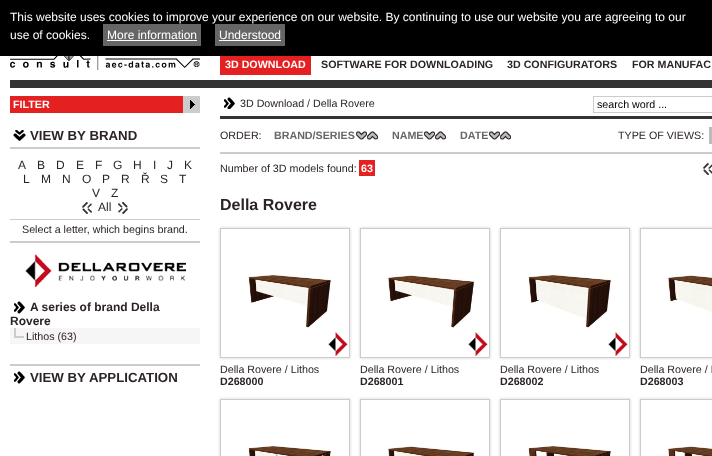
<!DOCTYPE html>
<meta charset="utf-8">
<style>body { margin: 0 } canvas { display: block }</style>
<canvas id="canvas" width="712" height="456"></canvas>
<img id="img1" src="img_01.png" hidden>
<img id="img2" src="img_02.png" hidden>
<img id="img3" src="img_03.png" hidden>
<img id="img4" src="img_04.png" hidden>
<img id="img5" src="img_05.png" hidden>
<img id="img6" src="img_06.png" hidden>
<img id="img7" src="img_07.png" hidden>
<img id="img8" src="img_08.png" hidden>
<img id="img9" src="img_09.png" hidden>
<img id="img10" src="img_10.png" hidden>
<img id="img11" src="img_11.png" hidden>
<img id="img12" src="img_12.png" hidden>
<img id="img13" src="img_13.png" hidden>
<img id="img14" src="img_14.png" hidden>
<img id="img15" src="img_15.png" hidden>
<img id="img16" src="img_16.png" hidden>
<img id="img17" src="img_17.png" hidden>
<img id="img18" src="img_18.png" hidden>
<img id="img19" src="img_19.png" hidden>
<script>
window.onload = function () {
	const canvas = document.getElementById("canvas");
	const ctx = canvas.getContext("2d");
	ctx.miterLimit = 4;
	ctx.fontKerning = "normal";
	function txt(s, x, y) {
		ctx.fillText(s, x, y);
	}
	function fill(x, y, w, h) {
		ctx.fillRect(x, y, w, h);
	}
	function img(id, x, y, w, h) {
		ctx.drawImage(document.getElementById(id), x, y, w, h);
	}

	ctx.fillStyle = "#FFFFFF";
	fill(0, 0, 712, 456);
	ctx.fillStyle = "#000000";
	fill(0, 0, 712, 56);
	ctx.fillStyle = "#666666";
	fill(103, 24, 98, 22);
	ctx.fillStyle = "#FFFFFF";
	fill(107, 40, 90, 1);
	ctx.fillStyle = "#666666";
	fill(215, 24, 70, 22);
	ctx.fillStyle = "#FFFFFF";
	fill(219, 40, 62, 1);
	ctx.fillStyle = "#333333";
	fill(10, 80, 702, 8);
	img("img1", 10, 56, 190, 14);
	ctx.fillStyle = "#E52020";
	fill(220, 56, 91, 19);
	fill(10, 96, 173, 17);
	img("img2", 183, 96, 17, 17);
	ctx.fillStyle = "#CCCCCC";
	fill(10, 147, 190, 2);
	img("img3", 13, 130, 13, 11);
	fill(10, 241, 190, 2);
	img("img4", 82, 202, 10, 12);
	img("img5", 118, 202, 10, 12);
	fill(10, 219, 190, 1);
	img("img6", 25, 254, 161, 34);
	img("img7", 14, 301, 11, 13);
	ctx.fillStyle = "#F7F5F5";
	fill(10, 328, 190, 16);
	ctx.fillStyle = "#CCCCCC";
	fill(14, 336, 10, 2);
	fill(14, 328, 2, 10);
	fill(10, 364, 190, 2);
	img("img7", 14, 371, 11, 13);
	img("img8", 224, 97, 11, 12);
	ctx.strokeStyle = "#CCCCCC";
	ctx.strokeRect(593.5, 96.5, 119, 16);
	ctx.fillStyle = "#333333";
	fill(220, 116, 492, 3);
	ctx.fillStyle = "#CCCCCC";
	fill(220, 152, 492, 2);
	ctx.fillStyle = "#BBBBBB";
	fill(356, 131, 22, 9);
	img("img9", 355, 127, 24, 17);
	fill(424, 131, 22, 9);
	img("img9", 423, 127, 24, 17);
	fill(489, 131, 22, 9);
	fill(709, 127, 3, 17);
	ctx.fillStyle = "#E52020";
	fill(359, 160, 16, 16);
	img("img10", 703, 163, 9, 12);
	ctx.save();
	ctx.beginPath();
	ctx.moveTo(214, 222);
	ctx.lineTo(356, 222);
	ctx.lineTo(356, 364);
	ctx.lineTo(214, 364);
	ctx.closePath();
	ctx.moveTo(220, 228);
	ctx.lineTo(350, 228);
	ctx.lineTo(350, 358);
	ctx.lineTo(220, 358);
	ctx.closePath();
	ctx.clip("evenodd");
	ctx.fillStyle = "#CCCCCC";
	ctx.filter = "blur(1.5px)";
	ctx.beginPath();
	ctx.rect(220, 228, 130, 130);
	ctx.fill();
	ctx.filter = "none";
	ctx.restore();
	ctx.strokeRect(220.5, 228.5, 129, 129);
	img("img11", 248, 274, 84, 54);
	img("img12", 328, 332, 20, 24);
	ctx.save();
	ctx.beginPath();
	ctx.moveTo(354, 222);
	ctx.lineTo(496, 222);
	ctx.lineTo(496, 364);
	ctx.lineTo(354, 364);
	ctx.closePath();
	ctx.moveTo(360, 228);
	ctx.lineTo(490, 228);
	ctx.lineTo(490, 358);
	ctx.lineTo(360, 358);
	ctx.closePath();
	ctx.clip("evenodd");
	ctx.fillStyle = "#CCCCCC";
	ctx.filter = "blur(1.5px)";
	ctx.beginPath();
	ctx.rect(360, 228, 130, 130);
	ctx.fill();
	ctx.filter = "none";
	ctx.restore();
	ctx.strokeRect(360.5, 228.5, 129, 129);
	img("img13", 387, 275, 89, 53);
	img("img12", 468, 332, 20, 24);
	ctx.save();
	ctx.beginPath();
	ctx.moveTo(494, 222);
	ctx.lineTo(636, 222);
	ctx.lineTo(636, 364);
	ctx.lineTo(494, 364);
	ctx.closePath();
	ctx.moveTo(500, 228);
	ctx.lineTo(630, 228);
	ctx.lineTo(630, 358);
	ctx.lineTo(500, 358);
	ctx.closePath();
	ctx.clip("evenodd");
	ctx.fillStyle = "#CCCCCC";
	ctx.filter = "blur(1.5px)";
	ctx.beginPath();
	ctx.rect(500, 228, 130, 130);
	ctx.fill();
	ctx.filter = "none";
	ctx.restore();
	ctx.strokeRect(500.5, 228.5, 129, 129);
	img("img14", 528, 274, 84, 54);
	img("img12", 608, 332, 20, 24);
	ctx.save();
	ctx.beginPath();
	ctx.moveTo(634, 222);
	ctx.lineTo(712, 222);
	ctx.lineTo(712, 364);
	ctx.lineTo(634, 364);
	ctx.closePath();
	ctx.moveTo(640, 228);
	ctx.lineTo(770, 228);
	ctx.lineTo(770, 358);
	ctx.lineTo(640, 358);
	ctx.closePath();
	ctx.clip("evenodd");
	ctx.fillStyle = "#CCCCCC";
	ctx.filter = "blur(1.5px)";
	ctx.beginPath();
	ctx.rect(640, 228, 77, 130);
	ctx.fill();
	ctx.filter = "none";
	ctx.restore();
	ctx.strokeRect(640.5, 228.5, 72, 129);
	img("img15", 667, 275, 45, 37);
	ctx.save();
	ctx.beginPath();
	ctx.moveTo(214, 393);
	ctx.lineTo(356, 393);
	ctx.lineTo(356, 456);
	ctx.lineTo(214, 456);
	ctx.closePath();
	ctx.moveTo(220, 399);
	ctx.lineTo(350, 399);
	ctx.lineTo(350, 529);
	ctx.lineTo(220, 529);
	ctx.closePath();
	ctx.clip("evenodd");
	ctx.fillStyle = "#CCCCCC";
	ctx.filter = "blur(1.5px)";
	ctx.beginPath();
	ctx.rect(220, 399, 130, 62);
	ctx.fill();
	ctx.filter = "none";
	ctx.restore();
	ctx.strokeRect(220.5, 399.5, 129, 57);
	img("img16", 247, 446, 85, 10);
	ctx.save();
	ctx.beginPath();
	ctx.moveTo(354, 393);
	ctx.lineTo(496, 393);
	ctx.lineTo(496, 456);
	ctx.lineTo(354, 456);
	ctx.closePath();
	ctx.moveTo(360, 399);
	ctx.lineTo(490, 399);
	ctx.lineTo(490, 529);
	ctx.lineTo(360, 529);
	ctx.closePath();
	ctx.clip("evenodd");
	ctx.fillStyle = "#CCCCCC";
	ctx.filter = "blur(1.5px)";
	ctx.beginPath();
	ctx.rect(360, 399, 130, 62);
	ctx.fill();
	ctx.filter = "none";
	ctx.restore();
	ctx.strokeRect(360.5, 399.5, 129, 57);
	img("img17", 387, 445, 89, 11);
	ctx.save();
	ctx.beginPath();
	ctx.moveTo(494, 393);
	ctx.lineTo(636, 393);
	ctx.lineTo(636, 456);
	ctx.lineTo(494, 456);
	ctx.closePath();
	ctx.moveTo(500, 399);
	ctx.lineTo(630, 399);
	ctx.lineTo(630, 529);
	ctx.lineTo(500, 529);
	ctx.closePath();
	ctx.clip("evenodd");
	ctx.fillStyle = "#CCCCCC";
	ctx.filter = "blur(1.5px)";
	ctx.beginPath();
	ctx.rect(500, 399, 130, 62);
	ctx.fill();
	ctx.filter = "none";
	ctx.restore();
	ctx.strokeRect(500.5, 399.5, 129, 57);
	img("img18", 527, 446, 85, 10);
	ctx.save();
	ctx.beginPath();
	ctx.moveTo(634, 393);
	ctx.lineTo(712, 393);
	ctx.lineTo(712, 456);
	ctx.lineTo(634, 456);
	ctx.closePath();
	ctx.moveTo(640, 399);
	ctx.lineTo(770, 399);
	ctx.lineTo(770, 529);
	ctx.lineTo(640, 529);
	ctx.closePath();
	ctx.clip("evenodd");
	ctx.fillStyle = "#CCCCCC";
	ctx.filter = "blur(1.5px)";
	ctx.beginPath();
	ctx.rect(640, 399, 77, 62);
	ctx.fill();
	ctx.filter = "none";
	ctx.restore();
	ctx.strokeRect(640.5, 399.5, 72, 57);
	img("img19", 667, 445, 45, 11);
	ctx.font = "12px Liberation Sans";
	ctx.fillStyle = "#FFFFFF";
	txt("This website uses cookies to improve your experience on our website. By continuing to use our website you are agreeing to our", 10, 21);
	txt("use of cookies.", 10, 39);
	txt("More information", 107, 39);
	txt("Understood", 219, 39);
	ctx.font = "bold 10.7px Liberation Sans";
	txt("3D DOWNLOAD", 225, 68);
	ctx.fillStyle = "#2C2424";
	txt("SOFTWARE FOR DOWNLOADING", 321, 68);
	txt("3D CONFIGURATORS", 507, 68);
	txt("FOR MANUFAC", 632, 68);
	ctx.fillStyle = "#FFFFFF";
	txt("FILTER", 13, 108);
	ctx.font = "bold 13.25px Liberation Sans";
	ctx.fillStyle = "#2C2424";
	txt("VIEW BY BRAND", 30, 140);
	ctx.font = "12px Liberation Sans";
	txt("A", 18, 169);
	txt("B", 37, 169);
	txt("D", 56, 169);
	txt("E", 76, 169);
	txt("F", 95, 169);
	txt("G", 113, 169);
	txt("H", 133, 169);
	txt("I", 153, 169);
	txt("J", 167, 169);
	txt("K", 184, 169);
	txt("L", 23, 183);
	txt("M", 41, 183);
	txt("N", 62, 183);
	txt("O", 82, 183);
	txt("P", 102, 183);
	txt("R", 121, 183);
	txt("Ř", 141, 183);
	txt("S", 160, 183);
	txt("T", 179, 183);
	txt("V", 92, 197);
	txt("Z", 111, 197);
	txt("All", 98, 211);
	ctx.font = "10.7px Liberation Sans";
	txt("Select a letter, which begins brand.", 22, 233);
	ctx.font = "bold 12px Liberation Sans";
	txt("A series of brand Della", 30, 311);
	txt("Rovere", 10, 325);
	ctx.font = "10.7px Liberation Sans";
	txt("Lithos (63)", 26, 340);
	ctx.font = "bold 13.25px Liberation Sans";
	txt("VIEW BY APPLICATION", 30, 382);
	ctx.font = "10.7px Liberation Sans";
	txt("3D Download", 240, 107);
	ctx.fillStyle = "#333333";
	txt("/", 307, 107);
	ctx.fillStyle = "#2C2424";
	txt("Della Rovere", 313, 107);
	ctx.fillStyle = "#000000";
	txt("search word ...", 597, 108);
	ctx.fillStyle = "#2C2424";
	txt("ORDER:", 220, 139);
	ctx.font = "bold 10.7px Liberation Sans";
	ctx.fillStyle = "#666666";
	txt("BRAND/SERIES", 274, 139);
	txt("NAME", 392, 139);
	txt("DATE", 460, 139);
	img("img9", 488, 127, 24, 17);
	ctx.font = "10.7px Liberation Sans";
	ctx.fillStyle = "#2C2424";
	txt("TYPE OF VIEWS:", 618, 139);
	txt("Number of 3D models found:", 220, 172);
	ctx.font = "bold 10.7px Liberation Sans";
	ctx.fillStyle = "#FFFFFF";
	txt("63", 361, 172);
	ctx.font = "bold 16px Liberation Sans";
	ctx.fillStyle = "#2C2424";
	txt("Della Rovere", 220, 210);
	ctx.font = "10.7px Liberation Sans";
	txt("Della Rovere / Lithos", 220, 373);
	ctx.font = "bold 10.7px Liberation Sans";
	txt("D268000", 220, 385);
	ctx.font = "10.7px Liberation Sans";
	txt("Della Rovere / Lithos", 360, 373);
	ctx.font = "bold 10.7px Liberation Sans";
	txt("D268001", 360, 385);
	ctx.font = "10.7px Liberation Sans";
	txt("Della Rovere / Lithos", 500, 373);
	ctx.font = "bold 10.7px Liberation Sans";
	txt("D268002", 500, 385);
	ctx.font = "10.7px Liberation Sans";
	txt("Della Rovere / L", 640, 373);
	ctx.font = "bold 10.7px Liberation Sans";
	txt("D268003", 640, 385);
};
</script>
